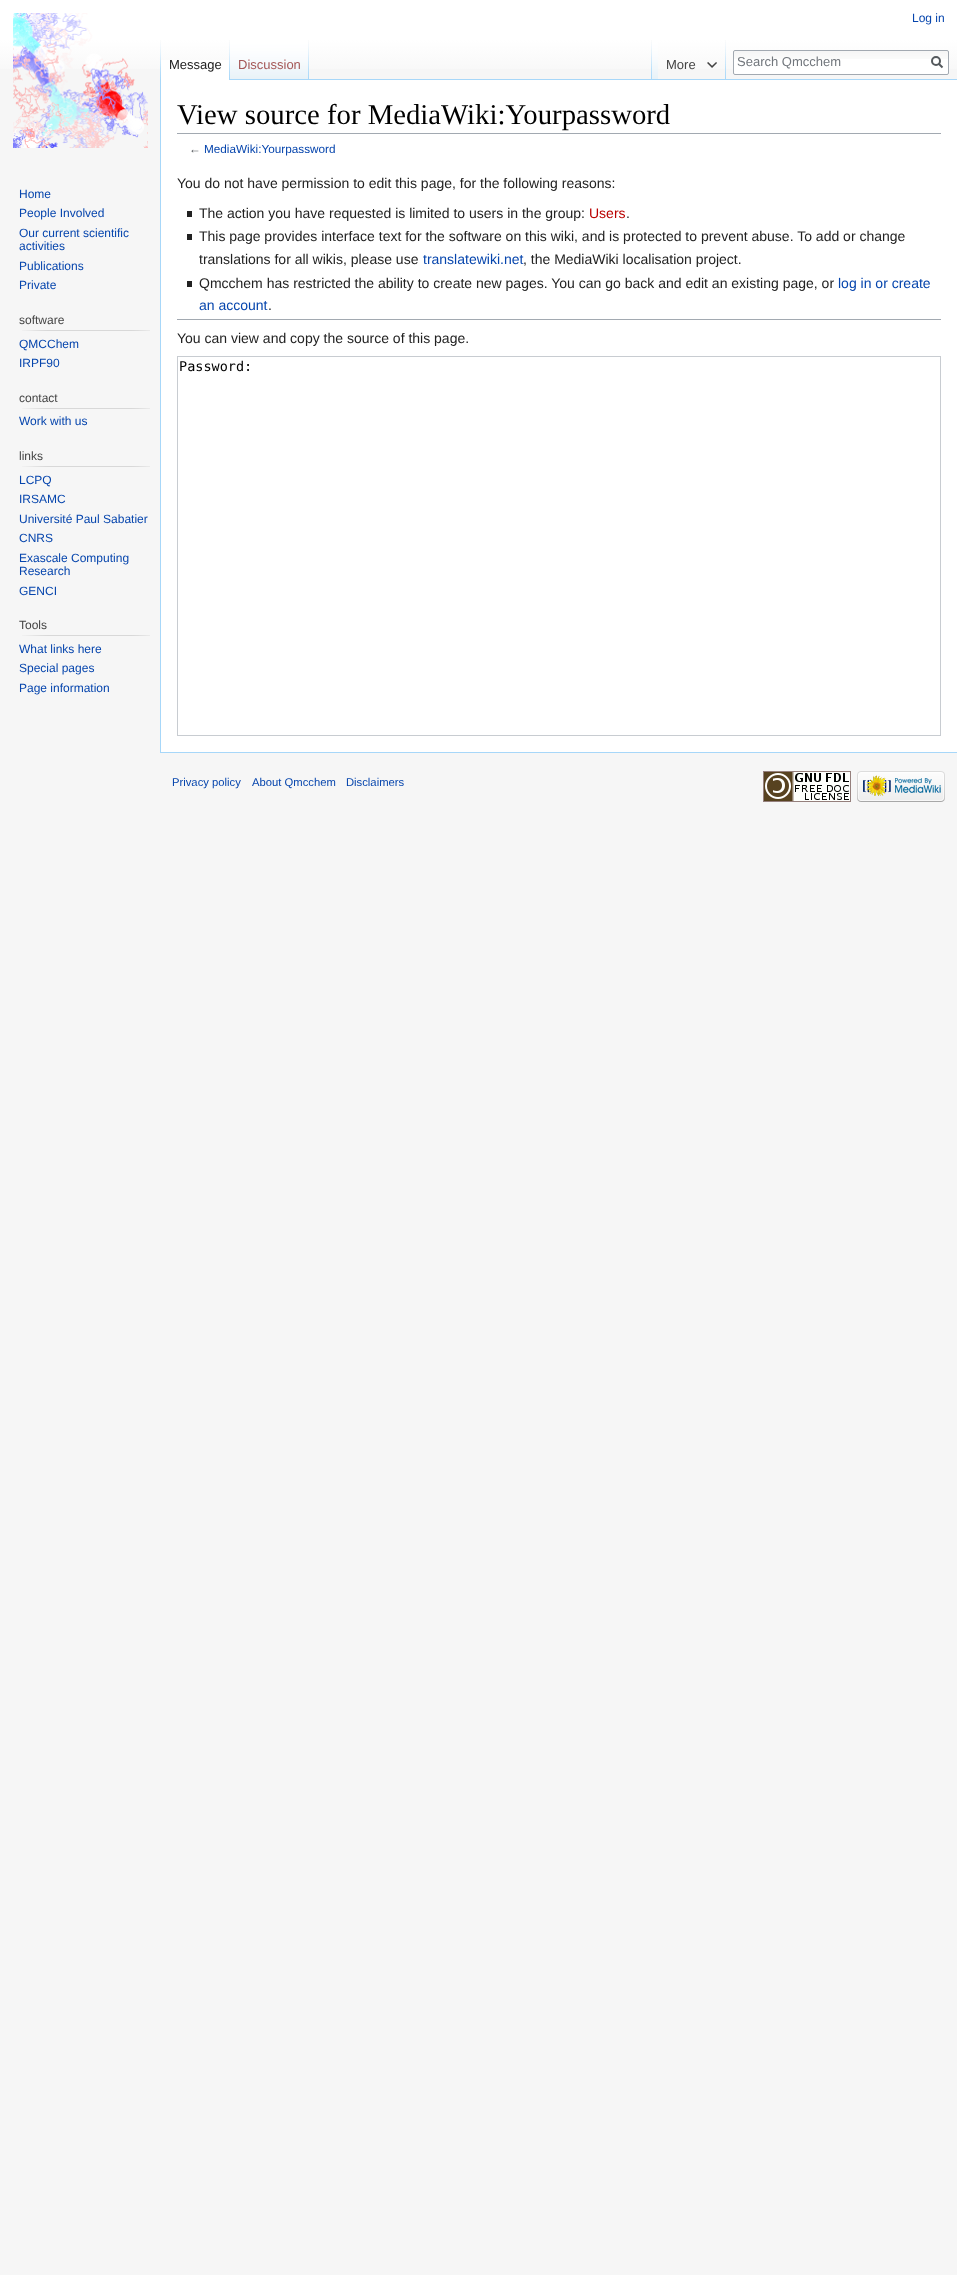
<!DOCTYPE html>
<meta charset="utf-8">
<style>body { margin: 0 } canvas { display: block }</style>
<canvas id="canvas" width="957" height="2275"></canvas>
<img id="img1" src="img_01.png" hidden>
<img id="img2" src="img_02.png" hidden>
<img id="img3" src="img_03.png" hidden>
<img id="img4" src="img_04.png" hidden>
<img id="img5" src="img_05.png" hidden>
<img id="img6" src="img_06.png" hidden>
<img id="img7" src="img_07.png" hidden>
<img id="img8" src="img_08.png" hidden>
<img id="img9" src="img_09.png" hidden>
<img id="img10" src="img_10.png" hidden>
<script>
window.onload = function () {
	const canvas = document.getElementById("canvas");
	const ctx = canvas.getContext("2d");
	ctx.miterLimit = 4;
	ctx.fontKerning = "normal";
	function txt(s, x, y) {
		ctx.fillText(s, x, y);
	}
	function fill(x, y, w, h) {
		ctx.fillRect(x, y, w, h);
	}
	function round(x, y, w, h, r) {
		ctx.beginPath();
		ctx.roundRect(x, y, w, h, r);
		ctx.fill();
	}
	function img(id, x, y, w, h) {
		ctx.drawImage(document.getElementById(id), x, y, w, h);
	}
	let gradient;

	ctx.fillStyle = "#F6F6F6";
	fill(0, 0, 957, 2275);
	gradient = ctx.createLinearGradient(479, 0, 479, 80);
	gradient.addColorStop(0.5, "#FFFFFF");
	gradient.addColorStop(1, "#F6F6F6");
	ctx.fillStyle = gradient;
	fill(0, 0, 957, 69);
	img("img1", 160, 40, 1, 39);
	ctx.fillStyle = "#FFFFFF";
	fill(161, 60, 68, 20);
	img("img2", 229, 40, 1, 40);
	img("img3", 230, 40, 78, 39);
	img("img1", 308, 40, 1, 39);
	img("img1", 651, 40, 1, 39);
	img("img4", 652, 40, 6, 39);
	img("img1", 725, 40, 1, 39);
	img("img5", 707, 62, 10, 6);
	round(733, 50, 216, 25, 2);
	img("img6", 733, 51, 216, 8);
	ctx.beginPath();
	ctx.roundRect(733.5, 50.5, 215, 24, 1.5);
	ctx.strokeStyle = "#A2A9B1";
	ctx.stroke();
	ctx.beginPath();
	ctx.moveTo(942.5, 67.5);
	ctx.lineTo(938.5, 63.5);
	ctx.strokeStyle = "#54595D";
	ctx.lineWidth = 2;
	ctx.stroke();
	ctx.beginPath();
	ctx.arc(936, 61, 4, 0, Math.PI * 2);
	ctx.stroke();
	img("img7", 13, 13, 135, 135);
	img("img8", 22, 330, 128, 1);
	img("img8", 22, 408, 128, 1);
	img("img8", 22, 466, 128, 1);
	img("img8", 22, 635, 128, 1);
	fill(161, 80, 796, 672);
	ctx.fillStyle = "#A7D7F9";
	fill(230, 79, 727, 1);
	fill(160, 752, 797, 1);
	fill(160, 79, 1, 674);
	ctx.fillStyle = "#A2A9B1";
	fill(177, 133, 764, 1);
	ctx.fillStyle = "#222222";
	fill(187, 211, 5, 6);
	fill(187, 234, 5, 6);
	fill(187, 281, 5, 6);
	ctx.fillStyle = "#A2A9B1";
	fill(177, 319, 764, 1);
	ctx.strokeStyle = "#C8CCD1";
	ctx.lineWidth = 1;
	ctx.strokeRect(177.5, 356.5, 763, 379);
	img("img9", 763, 771, 88, 31);
	img("img10", 857, 771, 88, 31);
	ctx.font = "12px Liberation Sans";
	ctx.fillStyle = "#0645AD";
	txt("Log in", 912, 22);
	ctx.font = "13px Liberation Sans";
	ctx.fillStyle = "#222222";
	txt("Message", 169, 69);
	ctx.fillStyle = "#A55858";
	txt("Discussion", 238, 69);
	ctx.fillStyle = "#444444";
	txt("More", 666, 69);
	ctx.fillStyle = "#72777D";
	txt("Search Qmcchem", 737, 66);
	ctx.font = "12px Liberation Sans";
	ctx.fillStyle = "#0645AD";
	txt("Home", 19, 198);
	txt("People Involved", 19, 217);
	txt("Our current scientific", 19, 237);
	txt("activities", 19, 250);
	txt("Publications", 19, 270);
	txt("Private", 19, 289);
	ctx.fillStyle = "#444444";
	txt("software", 19, 324);
	ctx.fillStyle = "#0645AD";
	txt("QMCChem", 19, 348);
	txt("IRPF90", 19, 367);
	ctx.fillStyle = "#444444";
	txt("contact", 19, 402);
	ctx.fillStyle = "#0645AD";
	txt("Work with us", 19, 425);
	ctx.fillStyle = "#444444";
	txt("links", 19, 460);
	ctx.fillStyle = "#0645AD";
	txt("LCPQ", 19, 484);
	txt("IRSAMC", 19, 503);
	txt("Université Paul Sabatier", 19, 523);
	txt("CNRS", 19, 542);
	txt("Exascale Computing", 19, 562);
	txt("Research", 19, 575);
	txt("GENCI", 19, 595);
	ctx.fillStyle = "#444444";
	txt("Tools", 19, 629);
	ctx.fillStyle = "#0645AD";
	txt("What links here", 19, 653);
	txt("Special pages", 19, 672);
	txt("Page information", 19, 692);
	ctx.font = "28.75px Liberation Serif";
	ctx.fillStyle = "#000000";
	txt("View source for MediaWiki:Yourpassword", 177, 124);
	ctx.font = "11.75px Liberation Sans";
	ctx.fillStyle = "#54595D";
	txt("←", 189, 153);
	ctx.fillStyle = "#0645AD";
	txt("MediaWiki:Yourpassword", 204, 153);
	ctx.font = "14px Liberation Sans";
	ctx.fillStyle = "#222222";
	txt("You do not have permission to edit this page, for the following reasons:", 177, 188);
	txt("The action you have requested is limited to users in the group:", 199, 218);
	ctx.fillStyle = "#BA0000";
	txt("Users", 589, 218);
	ctx.fillStyle = "#222222";
	txt(".", 626, 218);
	txt("This page provides interface text for the software on this wiki, and is protected to prevent abuse. To add or change", 199, 241);
	txt("translations for all wikis, please use", 199, 264);
	ctx.fillStyle = "#0645AD";
	txt("translatewiki.net", 423, 264);
	ctx.fillStyle = "#222222";
	txt(", the MediaWiki localisation project.", 523, 264);
	txt("Qmcchem has restricted the ability to create new pages. You can go back and edit an existing page, or", 199, 288);
	ctx.fillStyle = "#0645AD";
	txt("log in or create", 838, 288);
	txt("an account", 199, 310);
	ctx.fillStyle = "#222222";
	txt(".", 268, 310);
	txt("You can view and copy the source of this page.", 177, 343);
	ctx.font = "13.5px DejaVu Sans Mono";
	ctx.fillStyle = "#000000";
	txt("Password:", 179, 371);
	ctx.font = "11.25px Liberation Sans";
	ctx.fillStyle = "#0645AD";
	txt("Privacy policy", 172, 786);
	txt("About Qmcchem", 252, 786);
	txt("Disclaimers", 346, 786);
};
</script>
